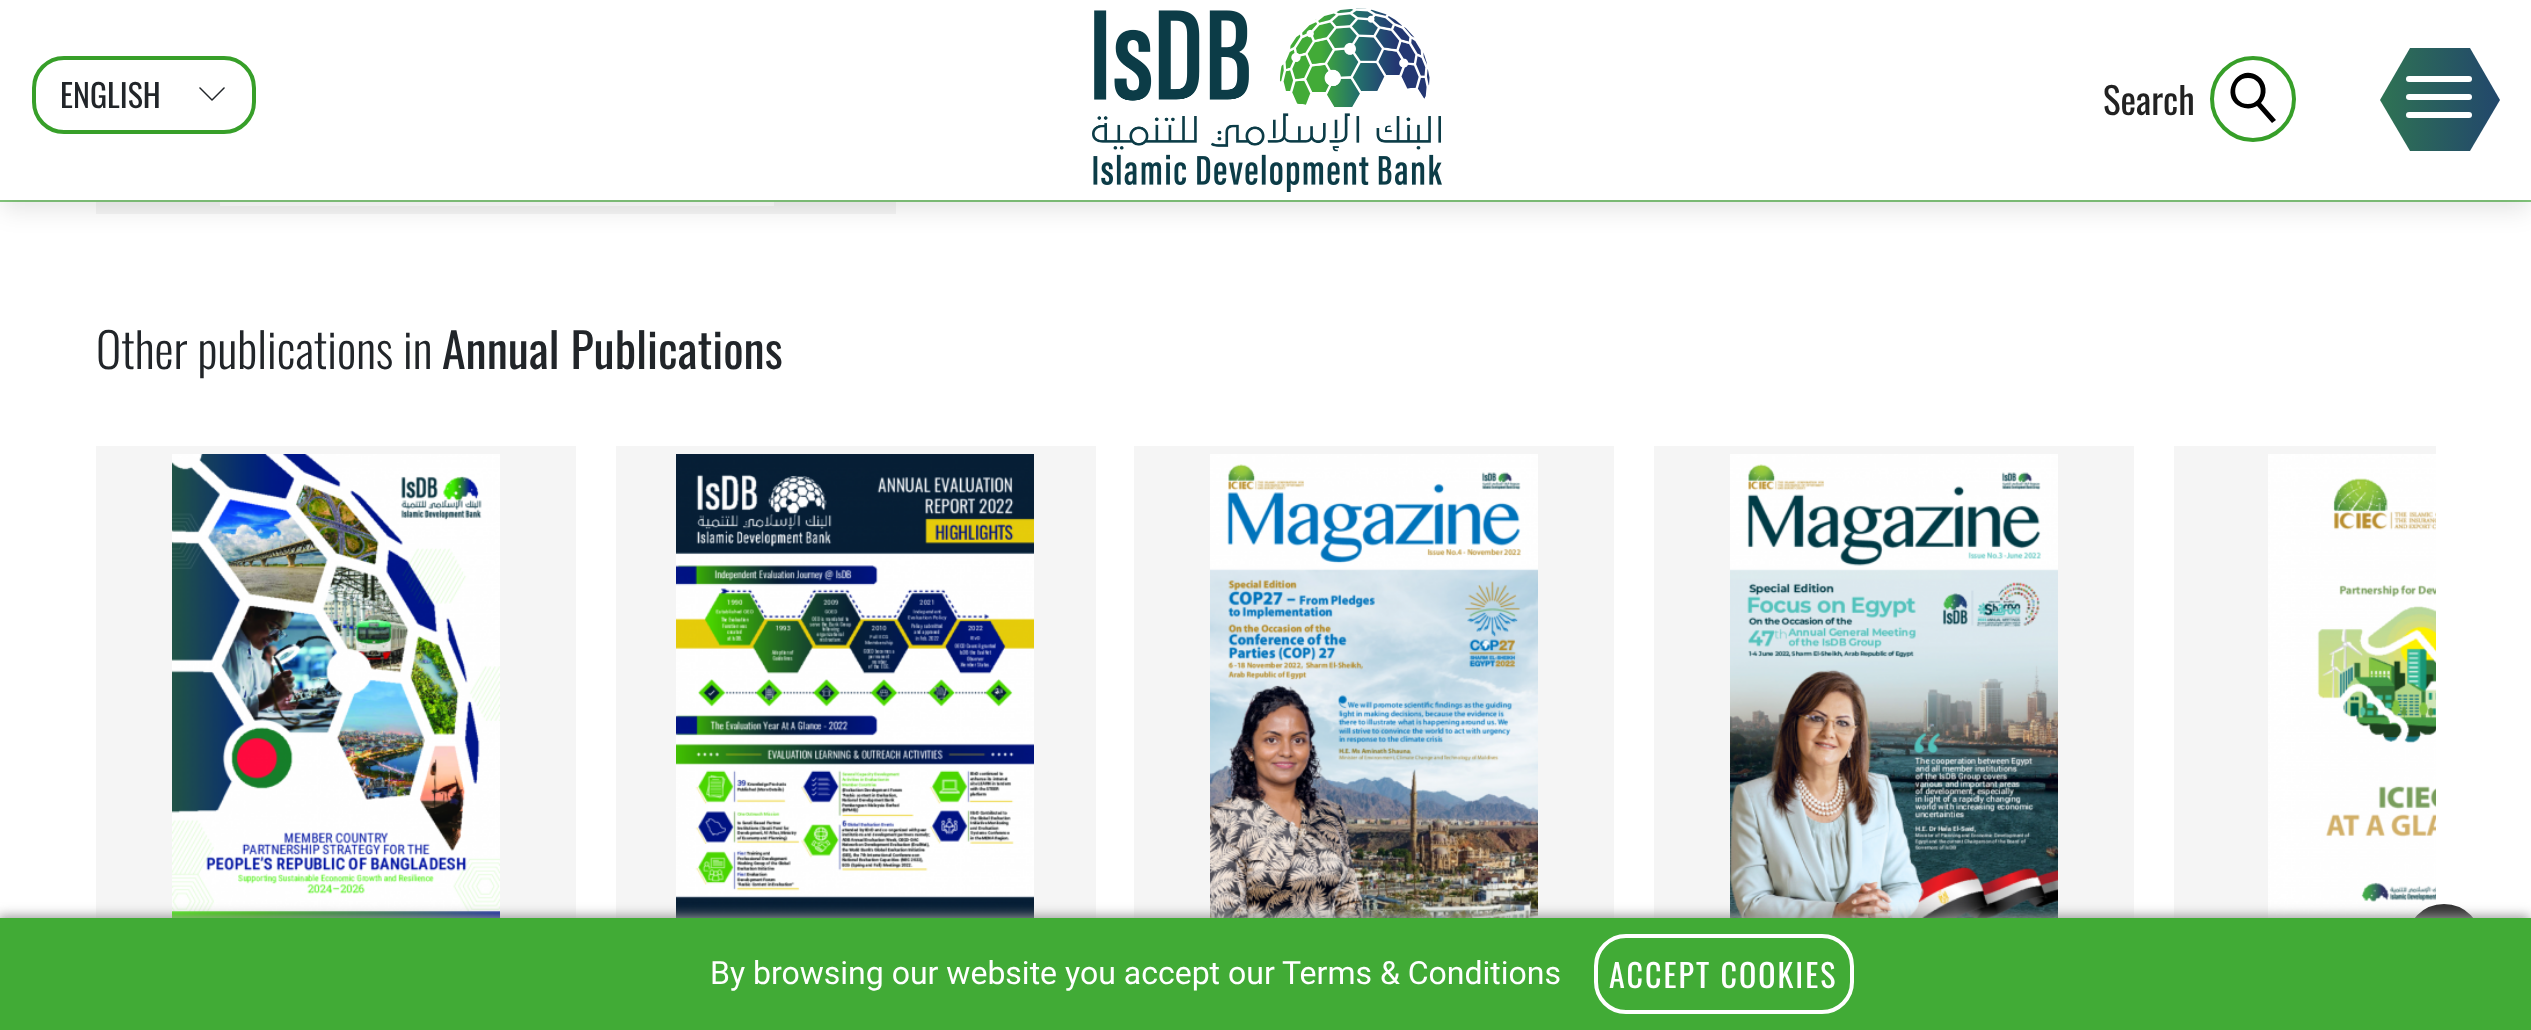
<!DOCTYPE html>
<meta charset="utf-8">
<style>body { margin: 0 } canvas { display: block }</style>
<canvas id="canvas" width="2531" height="1030"></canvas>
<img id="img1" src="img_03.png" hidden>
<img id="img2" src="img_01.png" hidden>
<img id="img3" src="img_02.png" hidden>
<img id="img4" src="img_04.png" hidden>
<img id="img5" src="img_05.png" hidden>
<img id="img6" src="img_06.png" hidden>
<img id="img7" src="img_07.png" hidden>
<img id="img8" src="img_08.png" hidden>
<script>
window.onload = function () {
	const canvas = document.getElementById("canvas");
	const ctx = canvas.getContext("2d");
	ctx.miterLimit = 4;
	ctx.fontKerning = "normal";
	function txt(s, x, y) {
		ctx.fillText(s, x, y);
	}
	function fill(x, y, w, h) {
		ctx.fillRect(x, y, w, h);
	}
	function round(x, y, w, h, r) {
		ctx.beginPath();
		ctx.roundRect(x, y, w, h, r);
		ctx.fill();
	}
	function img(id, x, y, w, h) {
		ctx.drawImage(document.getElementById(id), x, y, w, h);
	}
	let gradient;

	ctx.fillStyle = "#FFFFFF";
	fill(0, 0, 2531, 1030);
	ctx.fillStyle = "#85C97E";
	fill(0, 200, 2531, 2);
	ctx.fillStyle = "#F5F5F5";
	fill(96, 202, 800, 12);
	img("img1", 220, 202, 554, 4);
	ctx.fillStyle = "rgba(0, 0, 0, 0.1)";
	ctx.filter = "blur(12px)";
	ctx.beginPath();
	ctx.rect(2, 14, 2528, 196);
	ctx.fill();
	ctx.filter = "none";
	ctx.fillStyle = "#FFFFFF";
	fill(0, 0, 2531, 200);
	ctx.beginPath();
	ctx.roundRect(34, 58, 220, 74, 30);
	ctx.strokeStyle = "#379F29";
	ctx.lineWidth = 4;
	ctx.stroke();
	img("img2", 199, 87, 26, 14);
	img("img3", 1092, 8, 350, 184);
	ctx.beginPath();
	ctx.arc(2253, 99, 41, 0, Math.PI * 2);
	ctx.stroke();
	ctx.fillStyle = "#000000";
	ctx.beginPath();
	ctx.moveTo(2261, 103);
	ctx.lineTo(2276, 120);
	ctx.lineTo(2272, 123);
	ctx.lineTo(2257, 106);
	ctx.bezierCurveTo(2252, 109, 2246, 109, 2241, 107);
	ctx.bezierCurveTo(2218, 97, 2237, 62, 2258, 76);
	ctx.bezierCurveTo(2267, 82, 2268, 95, 2261, 103);
	ctx.closePath();
	ctx.moveTo(2248, 104);
	ctx.bezierCurveTo(2265, 104, 2265, 78, 2248, 78);
	ctx.bezierCurveTo(2231, 78, 2231, 104, 2248, 104);
	ctx.closePath();
	ctx.fill();
	gradient = ctx.createLinearGradient(2235, 100, 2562, 100);
	gradient.addColorStop(0, "#3FAA35");
	gradient.addColorStop(0.1, "#3B9D3C");
	gradient.addColorStop(0.72, "#255166");
	gradient.addColorStop(1, "#1C3377");
	ctx.fillStyle = gradient;
	ctx.beginPath();
	ctx.moveTo(2410, 151);
	ctx.lineTo(2470, 151);
	ctx.lineTo(2500, 100);
	ctx.lineTo(2470, 48);
	ctx.lineTo(2410, 48);
	ctx.lineTo(2380, 100);
	ctx.closePath();
	ctx.fill();
	ctx.fillStyle = "#FFFFFF";
	round(2406, 76, 66, 6, 3);
	round(2406, 94, 66, 6, 3);
	round(2406, 112, 66, 6, 3);
	ctx.fillStyle = "#F5F5F5";
	fill(96, 446, 480, 472);
	img("img4", 172, 454, 328, 464);
	fill(616, 446, 480, 472);
	img("img5", 676, 454, 358, 464);
	fill(1134, 446, 480, 472);
	img("img6", 1210, 454, 328, 464);
	fill(1654, 446, 480, 472);
	img("img7", 1730, 454, 328, 464);
	fill(2174, 446, 262, 472);
	img("img8", 2268, 454, 168, 464);
	ctx.fillStyle = "rgba(0, 0, 0, 0.8)";
	ctx.beginPath();
	ctx.arc(2444, 942, 39, 0, Math.PI * 2);
	ctx.fill();
	ctx.strokeStyle = "#FFFFFF";
	ctx.lineWidth = 2;
	ctx.stroke();
	ctx.fillStyle = "#999999";
	ctx.filter = "blur(6px)";
	ctx.beginPath();
	ctx.rect(-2, 916, 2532, 112);
	ctx.fill();
	ctx.filter = "none";
	ctx.fillStyle = "#41AB36";
	fill(0, 918, 2531, 112);
	ctx.beginPath();
	ctx.roundRect(1596, 936, 256, 76, 30);
	ctx.lineWidth = 4;
	ctx.stroke();
	ctx.font = "32px Oswald";
	ctx.fillStyle = "#212529";
	txt("ENGLISH", 60, 108);
	ctx.font = "37px Oswald";
	ctx.fillStyle = "#222222";
	txt("Search", 2103, 115);
	ctx.font = "300 48px Oswald";
	ctx.fillStyle = "#212529";
	txt("Other publications in", 96, 369);
	ctx.font = "48px Oswald";
	txt("Annual Publications", 442, 369);
	ctx.font = "32px Roboto";
	ctx.fillStyle = "#FFFFFF";
	txt("By browsing our website you accept our Terms & Conditions", 710, 984);
	ctx.letterSpacing = "2px";
	ctx.font = "32px Oswald";
	txt("ACCEPT COOKIES", 1609, 988);
};
</script>
